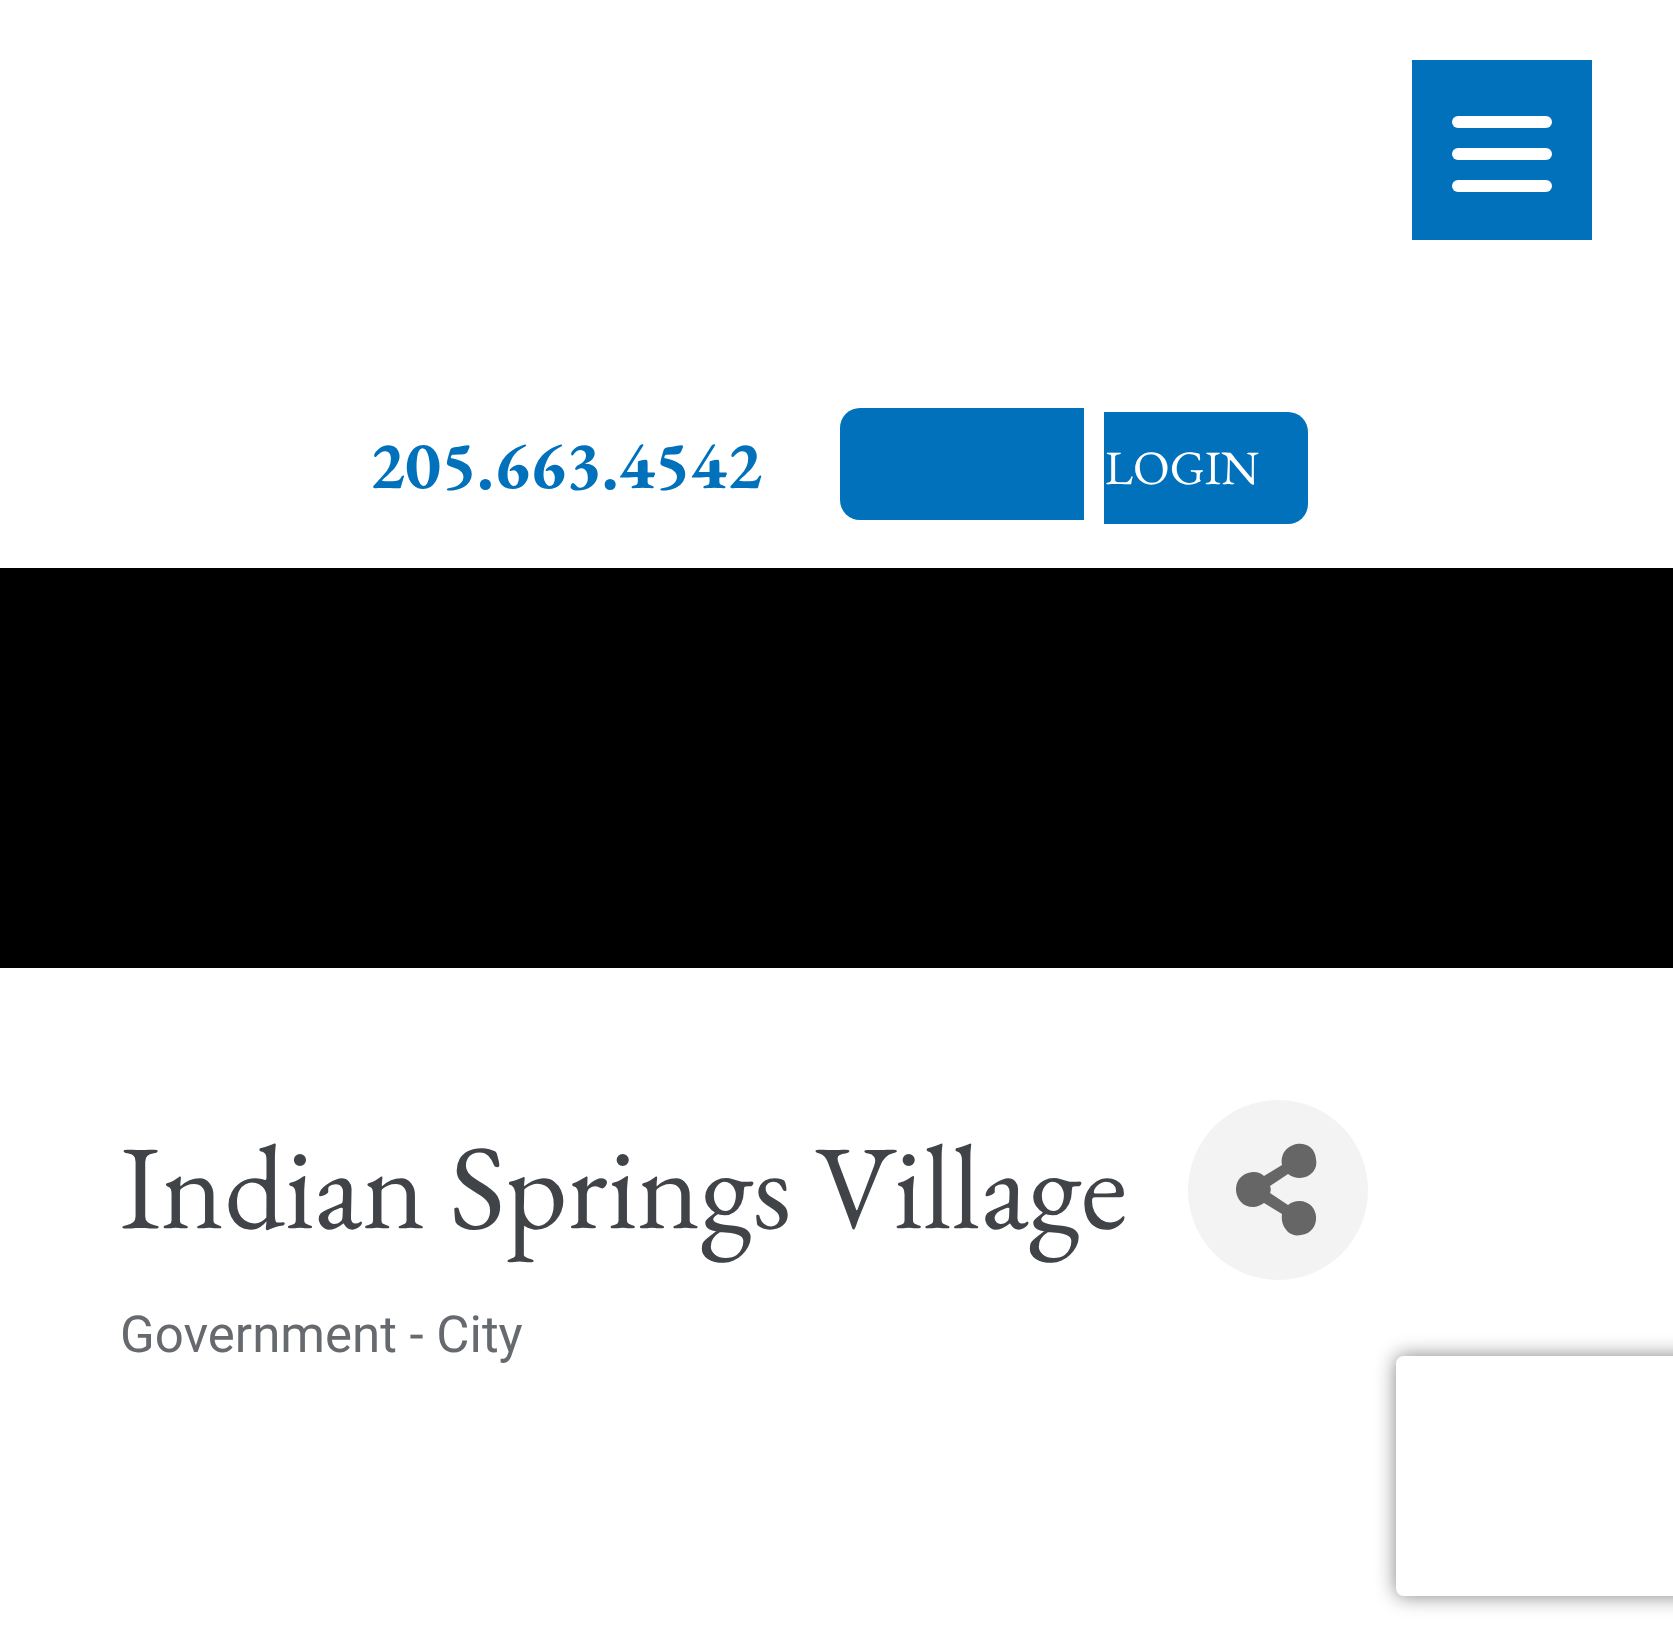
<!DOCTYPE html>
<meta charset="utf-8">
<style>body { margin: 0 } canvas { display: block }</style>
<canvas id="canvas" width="1673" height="1651"></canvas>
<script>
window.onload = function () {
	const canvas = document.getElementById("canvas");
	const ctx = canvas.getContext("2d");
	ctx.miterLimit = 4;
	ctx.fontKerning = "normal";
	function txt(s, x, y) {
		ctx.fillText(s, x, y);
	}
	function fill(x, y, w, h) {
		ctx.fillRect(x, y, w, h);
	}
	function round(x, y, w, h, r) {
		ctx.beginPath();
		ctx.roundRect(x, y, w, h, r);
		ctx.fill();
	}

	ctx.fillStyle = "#FFFFFF";
	fill(0, 0, 1673, 1651);
	ctx.fillStyle = "#0071BA";
	fill(1412, 60, 180, 180);
	ctx.fillStyle = "#FFFFFF";
	round(1452, 148, 100, 12, 6);
	round(1452, 116, 100, 12, 6);
	round(1452, 180, 100, 12, 6);
	ctx.fillStyle = "#0071BA";
	ctx.beginPath();
	ctx.roundRect(840, 408, 244, 112, [20, 0, 0, 20]);
	ctx.fill();
	ctx.beginPath();
	ctx.roundRect(1104, 412, 204, 112, [0, 20, 20, 0]);
	ctx.fill();
	ctx.fillStyle = "#000000";
	fill(0, 568, 1673, 400);
	ctx.fillStyle = "#F3F3F3";
	ctx.beginPath();
	ctx.arc(1278, 1190, 90, 0, Math.PI * 2);
	ctx.fill();
	ctx.fillStyle = "#666666";
	ctx.beginPath();
	ctx.moveTo(1299, 1201);
	ctx.bezierCurveTo(1321, 1201, 1322, 1233, 1301, 1235);
	ctx.bezierCurveTo(1296, 1236, 1292, 1235, 1288, 1232);
	ctx.bezierCurveTo(1283, 1227, 1281, 1221, 1282, 1214);
	ctx.lineTo(1264, 1203);
	ctx.bezierCurveTo(1261, 1205, 1257, 1207, 1253, 1207);
	ctx.bezierCurveTo(1234, 1207, 1229, 1179, 1248, 1173);
	ctx.bezierCurveTo(1254, 1171, 1260, 1172, 1264, 1176);
	ctx.lineTo(1282, 1165);
	ctx.bezierCurveTo(1278, 1141, 1314, 1135, 1316, 1159);
	ctx.bezierCurveTo(1317, 1164, 1316, 1168, 1313, 1172);
	ctx.bezierCurveTo(1307, 1179, 1296, 1180, 1288, 1174);
	ctx.lineTo(1270, 1186);
	ctx.bezierCurveTo(1271, 1188, 1271, 1191, 1270, 1193);
	ctx.lineTo(1288, 1205);
	ctx.bezierCurveTo(1292, 1202, 1295, 1201, 1299, 1201);
	ctx.closePath();
	ctx.fill();
	ctx.save();
	ctx.beginPath();
	ctx.moveTo(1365, 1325);
	ctx.lineTo(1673, 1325);
	ctx.lineTo(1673, 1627);
	ctx.lineTo(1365, 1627);
	ctx.closePath();
	ctx.moveTo(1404, 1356);
	ctx.lineTo(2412, 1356);
	ctx.bezierCurveTo(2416.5, 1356, 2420, 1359.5, 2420, 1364);
	ctx.lineTo(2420, 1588);
	ctx.bezierCurveTo(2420, 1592.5, 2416.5, 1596, 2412, 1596);
	ctx.lineTo(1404, 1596);
	ctx.bezierCurveTo(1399.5, 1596, 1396, 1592.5, 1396, 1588);
	ctx.lineTo(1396, 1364);
	ctx.bezierCurveTo(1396, 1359.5, 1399.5, 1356, 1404, 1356);
	ctx.closePath();
	ctx.clip("evenodd");
	ctx.fillStyle = "#808080";
	ctx.filter = "blur(10px)";
	ctx.beginPath();
	ctx.roundRect(1396, 1356, 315, 240, 8);
	ctx.fill();
	ctx.filter = "none";
	ctx.restore();
	ctx.font = "bold 68px EB Garamond";
	ctx.fillStyle = "#0071BA";
	txt("205.663.4542", 369, 488);
	ctx.font = "48px EB Garamond";
	ctx.fillStyle = "#FFFFFF";
	txt("LOGIN", 1105, 484);
	ctx.font = "120px EB Garamond";
	ctx.fillStyle = "#404449";
	txt("Indian Springs Village", 120, 1228);
	ctx.font = "51px Roboto";
	ctx.fillStyle = "#66696D";
	txt("Government - City", 120, 1352);
};
</script>
